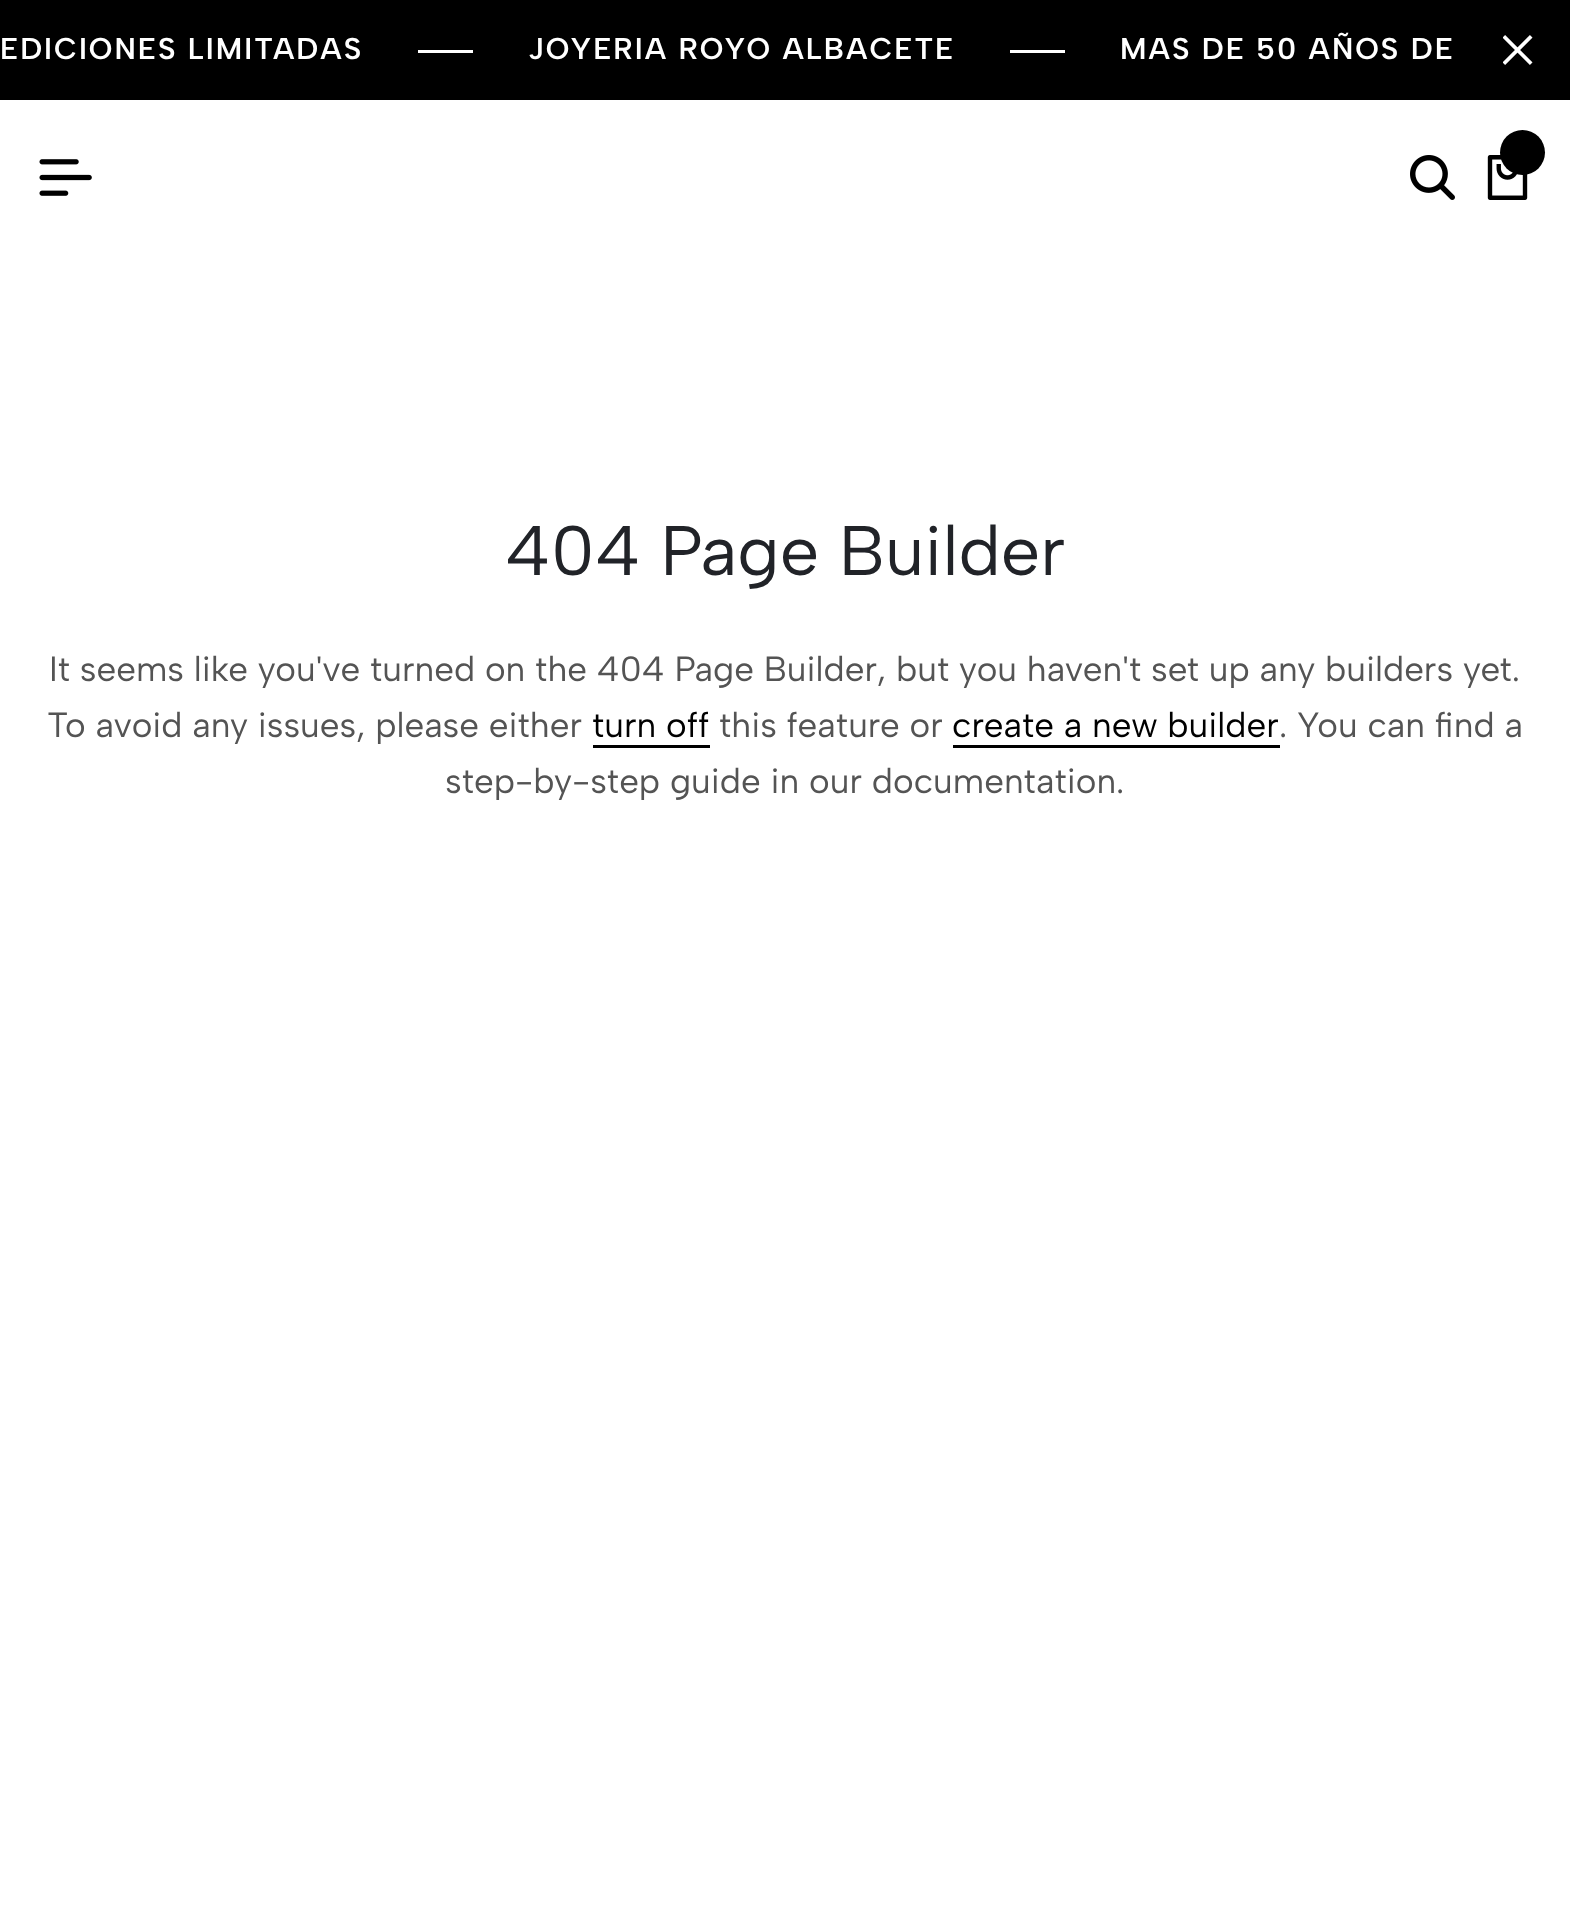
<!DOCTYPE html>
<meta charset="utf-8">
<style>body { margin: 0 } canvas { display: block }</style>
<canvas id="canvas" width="1570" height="1929"></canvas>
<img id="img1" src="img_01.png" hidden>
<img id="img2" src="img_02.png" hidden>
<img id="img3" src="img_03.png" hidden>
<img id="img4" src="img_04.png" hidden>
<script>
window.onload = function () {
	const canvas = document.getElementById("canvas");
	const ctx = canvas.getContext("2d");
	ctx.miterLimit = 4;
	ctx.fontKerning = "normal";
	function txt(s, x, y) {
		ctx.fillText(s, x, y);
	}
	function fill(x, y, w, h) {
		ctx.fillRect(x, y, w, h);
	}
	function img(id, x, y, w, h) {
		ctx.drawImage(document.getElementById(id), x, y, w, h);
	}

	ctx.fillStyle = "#FFFFFF";
	fill(0, 0, 1570, 1929);
	ctx.fillStyle = "#000000";
	fill(0, 0, 1570, 100);
	ctx.fillStyle = "#FFFFFF";
	fill(418, 50, 55, 3);
	fill(1010, 50, 55, 3);
	img("img1", 1503, 35, 30, 30);
	img("img2", 39, 159, 53, 37);
	img("img3", 1410, 155, 45, 45);
	img("img4", 1487, 155, 41, 45);
	ctx.fillStyle = "#000000";
	ctx.beginPath();
	ctx.arc(1522.5, 152.5, 22.5, 0, Math.PI * 2);
	ctx.fill();
	fill(593, 745, 117, 3);
	fill(953, 745, 327, 3);
	ctx.letterSpacing = "2px";
	ctx.font = "600 30px Albert Sans";
	ctx.fillStyle = "#FFFFFF";
	txt("EDICIONES LIMITADAS", 0, 59);
	txt("JOYERIA ROYO ALBACETE", 528, 59);
	txt("MAS DE 50 AÑOS DE", 1120, 59);
	ctx.letterSpacing = "0px";
	ctx.font = "70px Albert Sans";
	ctx.fillStyle = "#212328";
	txt("404 Page Builder", 505, 575);
	ctx.font = "35px Albert Sans";
	ctx.fillStyle = "#545454";
	txt("It seems like you've turned on the 404 Page Builder, but you haven't set up any builders yet.", 49, 681);
	txt("To avoid any issues, please either", 47, 737);
	ctx.fillStyle = "#000000";
	txt("turn off", 592, 737);
	ctx.fillStyle = "#545454";
	txt("this feature or", 719, 737);
	ctx.fillStyle = "#000000";
	txt("create a new builder", 952, 737);
	ctx.fillStyle = "#545454";
	txt(". You can find a", 1279, 737);
	txt("step-by-step guide in our documentation.", 445, 793);
};
</script>
